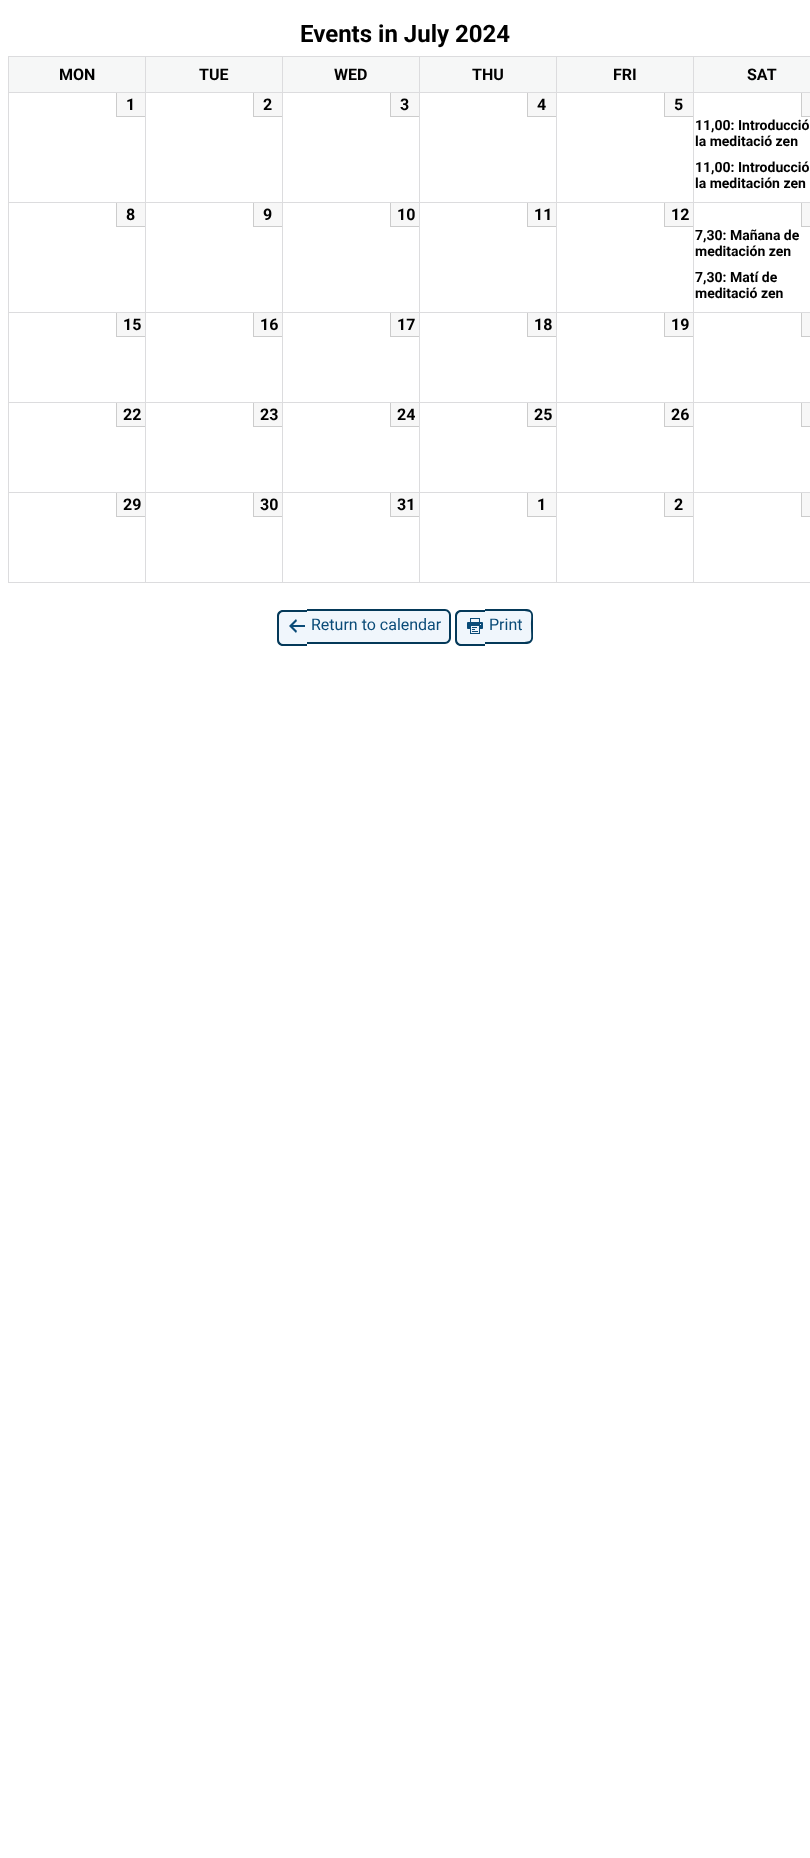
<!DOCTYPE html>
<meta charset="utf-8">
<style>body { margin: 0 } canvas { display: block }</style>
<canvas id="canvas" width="810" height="1858"></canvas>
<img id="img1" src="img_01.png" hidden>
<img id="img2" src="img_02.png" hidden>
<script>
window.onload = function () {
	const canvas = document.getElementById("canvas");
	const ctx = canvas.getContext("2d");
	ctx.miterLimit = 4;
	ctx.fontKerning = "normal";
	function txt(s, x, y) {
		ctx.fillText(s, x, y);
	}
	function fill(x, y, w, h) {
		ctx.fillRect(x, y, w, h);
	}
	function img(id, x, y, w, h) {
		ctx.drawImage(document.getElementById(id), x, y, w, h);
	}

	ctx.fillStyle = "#FFFFFF";
	fill(0, 0, 810, 1858);
	ctx.fillStyle = "#DCDCDE";
	fill(8, 56, 802, 1);
	fill(8, 56, 1, 527);
	ctx.fillStyle = "#F6F7F7";
	fill(9, 57, 136, 35);
	fill(146, 57, 136, 35);
	ctx.fillStyle = "#DCDCDE";
	fill(693, 92, 117, 1);
	fill(693, 202, 117, 1);
	fill(693, 312, 117, 1);
	fill(693, 402, 117, 1);
	fill(693, 492, 117, 1);
	fill(693, 582, 117, 1);
	fill(693, 492, 1, 91);
	fill(556, 492, 138, 1);
	fill(693, 402, 1, 91);
	fill(556, 402, 138, 1);
	fill(693, 312, 1, 91);
	fill(556, 312, 138, 1);
	fill(693, 202, 1, 111);
	fill(556, 202, 138, 1);
	fill(693, 92, 1, 111);
	fill(556, 92, 138, 1);
	fill(556, 582, 138, 1);
	fill(556, 492, 1, 91);
	fill(419, 492, 138, 1);
	fill(556, 402, 1, 91);
	fill(419, 402, 138, 1);
	fill(556, 312, 1, 91);
	fill(419, 312, 138, 1);
	fill(556, 202, 1, 111);
	fill(419, 202, 138, 1);
	fill(556, 92, 1, 111);
	fill(419, 92, 138, 1);
	fill(419, 582, 138, 1);
	fill(419, 492, 1, 91);
	fill(282, 492, 138, 1);
	fill(419, 402, 1, 91);
	fill(282, 402, 138, 1);
	fill(419, 312, 1, 91);
	fill(282, 312, 138, 1);
	fill(419, 202, 1, 111);
	fill(282, 202, 138, 1);
	fill(419, 92, 1, 111);
	fill(282, 92, 138, 1);
	fill(282, 582, 138, 1);
	fill(282, 492, 1, 91);
	fill(145, 492, 138, 1);
	fill(282, 402, 1, 91);
	fill(145, 402, 138, 1);
	fill(282, 312, 1, 91);
	fill(145, 312, 138, 1);
	fill(282, 202, 1, 111);
	fill(145, 202, 138, 1);
	fill(282, 92, 1, 111);
	fill(145, 92, 138, 1);
	fill(145, 582, 138, 1);
	fill(145, 492, 1, 91);
	fill(8, 492, 138, 1);
	fill(145, 402, 1, 91);
	fill(8, 402, 138, 1);
	fill(145, 312, 1, 91);
	fill(8, 312, 138, 1);
	fill(145, 202, 1, 111);
	fill(8, 202, 138, 1);
	fill(145, 92, 1, 111);
	fill(8, 92, 138, 1);
	fill(145, 56, 1, 37);
	ctx.fillStyle = "#F6F7F7";
	fill(283, 57, 136, 35);
	ctx.fillStyle = "#DCDCDE";
	fill(282, 56, 1, 37);
	ctx.fillStyle = "#F6F7F7";
	fill(420, 57, 136, 35);
	ctx.fillStyle = "#DCDCDE";
	fill(419, 56, 1, 37);
	ctx.fillStyle = "#F6F7F7";
	fill(557, 57, 136, 35);
	ctx.fillStyle = "#DCDCDE";
	fill(556, 56, 1, 37);
	ctx.fillStyle = "#F6F7F7";
	fill(694, 57, 116, 35);
	ctx.fillStyle = "#DCDCDE";
	fill(693, 56, 1, 37);
	ctx.fillStyle = "#F7F7F7";
	fill(117, 93, 28, 23);
	ctx.fillStyle = "#CCCCCC";
	fill(116, 116, 29, 1);
	fill(116, 93, 1, 24);
	ctx.fillStyle = "#F7F7F7";
	fill(254, 93, 28, 23);
	ctx.fillStyle = "#CCCCCC";
	fill(253, 116, 29, 1);
	fill(253, 93, 1, 24);
	ctx.fillStyle = "#F7F7F7";
	fill(391, 93, 28, 23);
	ctx.fillStyle = "#CCCCCC";
	fill(390, 116, 29, 1);
	fill(390, 93, 1, 24);
	ctx.fillStyle = "#F7F7F7";
	fill(528, 93, 28, 23);
	ctx.fillStyle = "#CCCCCC";
	fill(527, 116, 29, 1);
	fill(527, 93, 1, 24);
	ctx.fillStyle = "#F7F7F7";
	fill(665, 93, 28, 23);
	ctx.fillStyle = "#CCCCCC";
	fill(664, 116, 29, 1);
	fill(664, 93, 1, 24);
	ctx.fillStyle = "#F7F7F7";
	fill(802, 93, 8, 23);
	ctx.fillStyle = "#CCCCCC";
	fill(801, 116, 9, 1);
	fill(801, 93, 1, 24);
	ctx.fillStyle = "#F7F7F7";
	fill(117, 203, 28, 23);
	ctx.fillStyle = "#CCCCCC";
	fill(116, 226, 29, 1);
	fill(116, 203, 1, 24);
	ctx.fillStyle = "#F7F7F7";
	fill(254, 203, 28, 23);
	ctx.fillStyle = "#CCCCCC";
	fill(253, 226, 29, 1);
	fill(253, 203, 1, 24);
	ctx.fillStyle = "#F7F7F7";
	fill(391, 203, 28, 23);
	ctx.fillStyle = "#CCCCCC";
	fill(390, 226, 29, 1);
	fill(390, 203, 1, 24);
	ctx.fillStyle = "#F7F7F7";
	fill(528, 203, 28, 23);
	ctx.fillStyle = "#CCCCCC";
	fill(527, 226, 29, 1);
	fill(527, 203, 1, 24);
	ctx.fillStyle = "#F7F7F7";
	fill(665, 203, 28, 23);
	ctx.fillStyle = "#CCCCCC";
	fill(664, 226, 29, 1);
	fill(664, 203, 1, 24);
	ctx.fillStyle = "#F7F7F7";
	fill(802, 203, 8, 23);
	ctx.fillStyle = "#CCCCCC";
	fill(801, 226, 9, 1);
	fill(801, 203, 1, 24);
	ctx.fillStyle = "#F7F7F7";
	fill(117, 313, 28, 23);
	ctx.fillStyle = "#CCCCCC";
	fill(116, 336, 29, 1);
	fill(116, 313, 1, 24);
	ctx.fillStyle = "#F7F7F7";
	fill(254, 313, 28, 23);
	ctx.fillStyle = "#CCCCCC";
	fill(253, 336, 29, 1);
	fill(253, 313, 1, 24);
	ctx.fillStyle = "#F7F7F7";
	fill(391, 313, 28, 23);
	ctx.fillStyle = "#CCCCCC";
	fill(390, 336, 29, 1);
	fill(390, 313, 1, 24);
	ctx.fillStyle = "#F7F7F7";
	fill(528, 313, 28, 23);
	ctx.fillStyle = "#CCCCCC";
	fill(527, 336, 29, 1);
	fill(527, 313, 1, 24);
	ctx.fillStyle = "#F7F7F7";
	fill(665, 313, 28, 23);
	ctx.fillStyle = "#CCCCCC";
	fill(664, 336, 29, 1);
	fill(664, 313, 1, 24);
	ctx.fillStyle = "#F7F7F7";
	fill(802, 313, 8, 23);
	ctx.fillStyle = "#CCCCCC";
	fill(801, 336, 9, 1);
	fill(801, 313, 1, 24);
	ctx.fillStyle = "#F7F7F7";
	fill(117, 403, 28, 23);
	ctx.fillStyle = "#CCCCCC";
	fill(116, 426, 29, 1);
	fill(116, 403, 1, 24);
	ctx.fillStyle = "#F7F7F7";
	fill(254, 403, 28, 23);
	ctx.fillStyle = "#CCCCCC";
	fill(253, 426, 29, 1);
	fill(253, 403, 1, 24);
	ctx.fillStyle = "#F7F7F7";
	fill(391, 403, 28, 23);
	ctx.fillStyle = "#CCCCCC";
	fill(390, 426, 29, 1);
	fill(390, 403, 1, 24);
	ctx.fillStyle = "#F7F7F7";
	fill(528, 403, 28, 23);
	ctx.fillStyle = "#CCCCCC";
	fill(527, 426, 29, 1);
	fill(527, 403, 1, 24);
	ctx.fillStyle = "#F7F7F7";
	fill(665, 403, 28, 23);
	ctx.fillStyle = "#CCCCCC";
	fill(664, 426, 29, 1);
	fill(664, 403, 1, 24);
	ctx.fillStyle = "#F7F7F7";
	fill(802, 403, 8, 23);
	ctx.fillStyle = "#CCCCCC";
	fill(801, 426, 9, 1);
	fill(801, 403, 1, 24);
	ctx.fillStyle = "#DCDCDE";
	fill(8, 582, 138, 1);
	ctx.fillStyle = "#F7F7F7";
	fill(117, 493, 28, 23);
	ctx.fillStyle = "#CCCCCC";
	fill(116, 516, 29, 1);
	fill(116, 493, 1, 24);
	ctx.fillStyle = "#F7F7F7";
	fill(254, 493, 28, 23);
	ctx.fillStyle = "#CCCCCC";
	fill(253, 516, 29, 1);
	fill(253, 493, 1, 24);
	ctx.fillStyle = "#F7F7F7";
	fill(391, 493, 28, 23);
	ctx.fillStyle = "#CCCCCC";
	fill(390, 516, 29, 1);
	fill(390, 493, 1, 24);
	ctx.fillStyle = "#F7F7F7";
	fill(528, 493, 28, 23);
	ctx.fillStyle = "#CCCCCC";
	fill(527, 516, 29, 1);
	fill(527, 493, 1, 24);
	ctx.fillStyle = "#F7F7F7";
	fill(665, 493, 28, 23);
	ctx.fillStyle = "#CCCCCC";
	fill(664, 516, 29, 1);
	fill(664, 493, 1, 24);
	ctx.fillStyle = "#F7F7F7";
	fill(802, 493, 8, 23);
	ctx.fillStyle = "#CCCCCC";
	fill(801, 516, 9, 1);
	fill(801, 493, 1, 24);
	ctx.fillStyle = "#F0F6FC";
	ctx.beginPath();
	ctx.roundRect(277, 610, 30, 36, [6, 0, 0, 6]);
	ctx.fill();
	ctx.fillStyle = "#043959";
	ctx.beginPath();
	ctx.moveTo(283, 610);
	ctx.lineTo(307, 610);
	ctx.lineTo(307, 646);
	ctx.lineTo(283, 646);
	ctx.bezierCurveTo(279.5, 646, 277, 643.5, 277, 640);
	ctx.lineTo(277, 616);
	ctx.bezierCurveTo(277, 612.5, 279.5, 610, 283, 610);
	ctx.closePath();
	ctx.moveTo(283, 612);
	ctx.lineTo(307, 612);
	ctx.lineTo(307, 644);
	ctx.lineTo(283, 644);
	ctx.bezierCurveTo(281, 644, 279, 642, 279, 640);
	ctx.lineTo(279, 616);
	ctx.bezierCurveTo(279, 614, 281, 612, 283, 612);
	ctx.closePath();
	ctx.fill("evenodd");
	ctx.fillStyle = "#F0F6FC";
	ctx.beginPath();
	ctx.roundRect(307, 609, 144, 35, [0, 6, 6, 0]);
	ctx.fill();
	ctx.fillStyle = "#043959";
	ctx.beginPath();
	ctx.moveTo(307, 609);
	ctx.lineTo(445, 609);
	ctx.bezierCurveTo(448, 609, 451, 612, 451, 615);
	ctx.lineTo(451, 638);
	ctx.bezierCurveTo(451, 641, 448, 644, 445, 644);
	ctx.lineTo(307, 644);
	ctx.closePath();
	ctx.moveTo(307, 611);
	ctx.lineTo(445, 611);
	ctx.bezierCurveTo(447, 611, 449, 613, 449, 615);
	ctx.lineTo(449, 638);
	ctx.bezierCurveTo(449, 640, 447, 642, 445, 642);
	ctx.lineTo(307, 642);
	ctx.closePath();
	ctx.fill("evenodd");
	img("img1", 289, 619, 16, 14);
	ctx.fillStyle = "#F0F6FC";
	ctx.beginPath();
	ctx.roundRect(455, 610, 30, 36, [6, 0, 0, 6]);
	ctx.fill();
	ctx.fillStyle = "#043959";
	ctx.beginPath();
	ctx.moveTo(461, 610);
	ctx.lineTo(485, 610);
	ctx.lineTo(485, 646);
	ctx.lineTo(461, 646);
	ctx.bezierCurveTo(457.5, 646, 455, 643.5, 455, 640);
	ctx.lineTo(455, 616);
	ctx.bezierCurveTo(455, 612.5, 457.5, 610, 461, 610);
	ctx.closePath();
	ctx.moveTo(461, 612);
	ctx.lineTo(485, 612);
	ctx.lineTo(485, 644);
	ctx.lineTo(461, 644);
	ctx.bezierCurveTo(459, 644, 457, 642, 457, 640);
	ctx.lineTo(457, 616);
	ctx.bezierCurveTo(457, 614, 459, 612, 461, 612);
	ctx.closePath();
	ctx.fill("evenodd");
	ctx.fillStyle = "#F0F6FC";
	ctx.beginPath();
	ctx.roundRect(485, 609, 48, 35, [0, 6, 6, 0]);
	ctx.fill();
	ctx.fillStyle = "#043959";
	ctx.beginPath();
	ctx.moveTo(485, 609);
	ctx.lineTo(527, 609);
	ctx.bezierCurveTo(530, 609, 533, 612, 533, 615);
	ctx.lineTo(533, 638);
	ctx.bezierCurveTo(533, 641, 530, 644, 527, 644);
	ctx.lineTo(485, 644);
	ctx.closePath();
	ctx.moveTo(485, 611);
	ctx.lineTo(520, 611);
	ctx.bezierCurveTo(534, 611, 531, 612, 531, 626);
	ctx.bezierCurveTo(531, 641, 534, 642, 520, 642);
	ctx.lineTo(485, 642);
	ctx.closePath();
	ctx.fill("evenodd");
	img("img2", 467, 618, 16, 16);
	ctx.font = "bold 24px Roboto";
	ctx.fillStyle = "#000000";
	txt("Events in July 2024", 300, 42);
	ctx.font = "bold 16px Roboto";
	txt("MON", 59, 80);
	txt("TUE", 199, 80);
	txt("WED", 334, 80);
	txt("THU", 472, 80);
	txt("FRI", 613, 80);
	txt("SAT", 747, 80);
	txt("1", 126, 110);
	txt("2", 263, 110);
	txt("3", 400, 110);
	txt("4", 537, 110);
	txt("5", 674, 110);
	ctx.font = "bold 14px Roboto";
	txt("11,00: Introducció", 695, 130);
	txt("la meditació zen", 695, 146);
	txt("11,00: Introducció", 695, 172);
	txt("la meditación zen", 695, 188);
	ctx.font = "bold 16px Roboto";
	txt("8", 126, 220);
	txt("9", 263, 220);
	txt("10", 397, 220);
	txt("11", 534, 220);
	txt("12", 671, 220);
	ctx.font = "bold 14px Roboto";
	txt("7,30: Mañana de", 695, 240);
	txt("meditación zen", 695, 256);
	txt("7,30: Matí de", 695, 282);
	txt("meditació zen", 695, 298);
	ctx.font = "bold 16px Roboto";
	txt("15", 123, 330);
	txt("16", 260, 330);
	txt("17", 397, 330);
	txt("18", 534, 330);
	txt("19", 671, 330);
	txt("22", 123, 420);
	txt("23", 260, 420);
	txt("24", 397, 420);
	txt("25", 534, 420);
	txt("26", 671, 420);
	txt("29", 123, 510);
	txt("30", 260, 510);
	txt("31", 397, 510);
	txt("1", 537, 510);
	txt("2", 674, 510);
	ctx.font = "16px Roboto";
	ctx.fillStyle = "#0A4B78";
	txt("Return to calendar", 311, 630);
	txt("Print", 489, 630);
};
</script>
